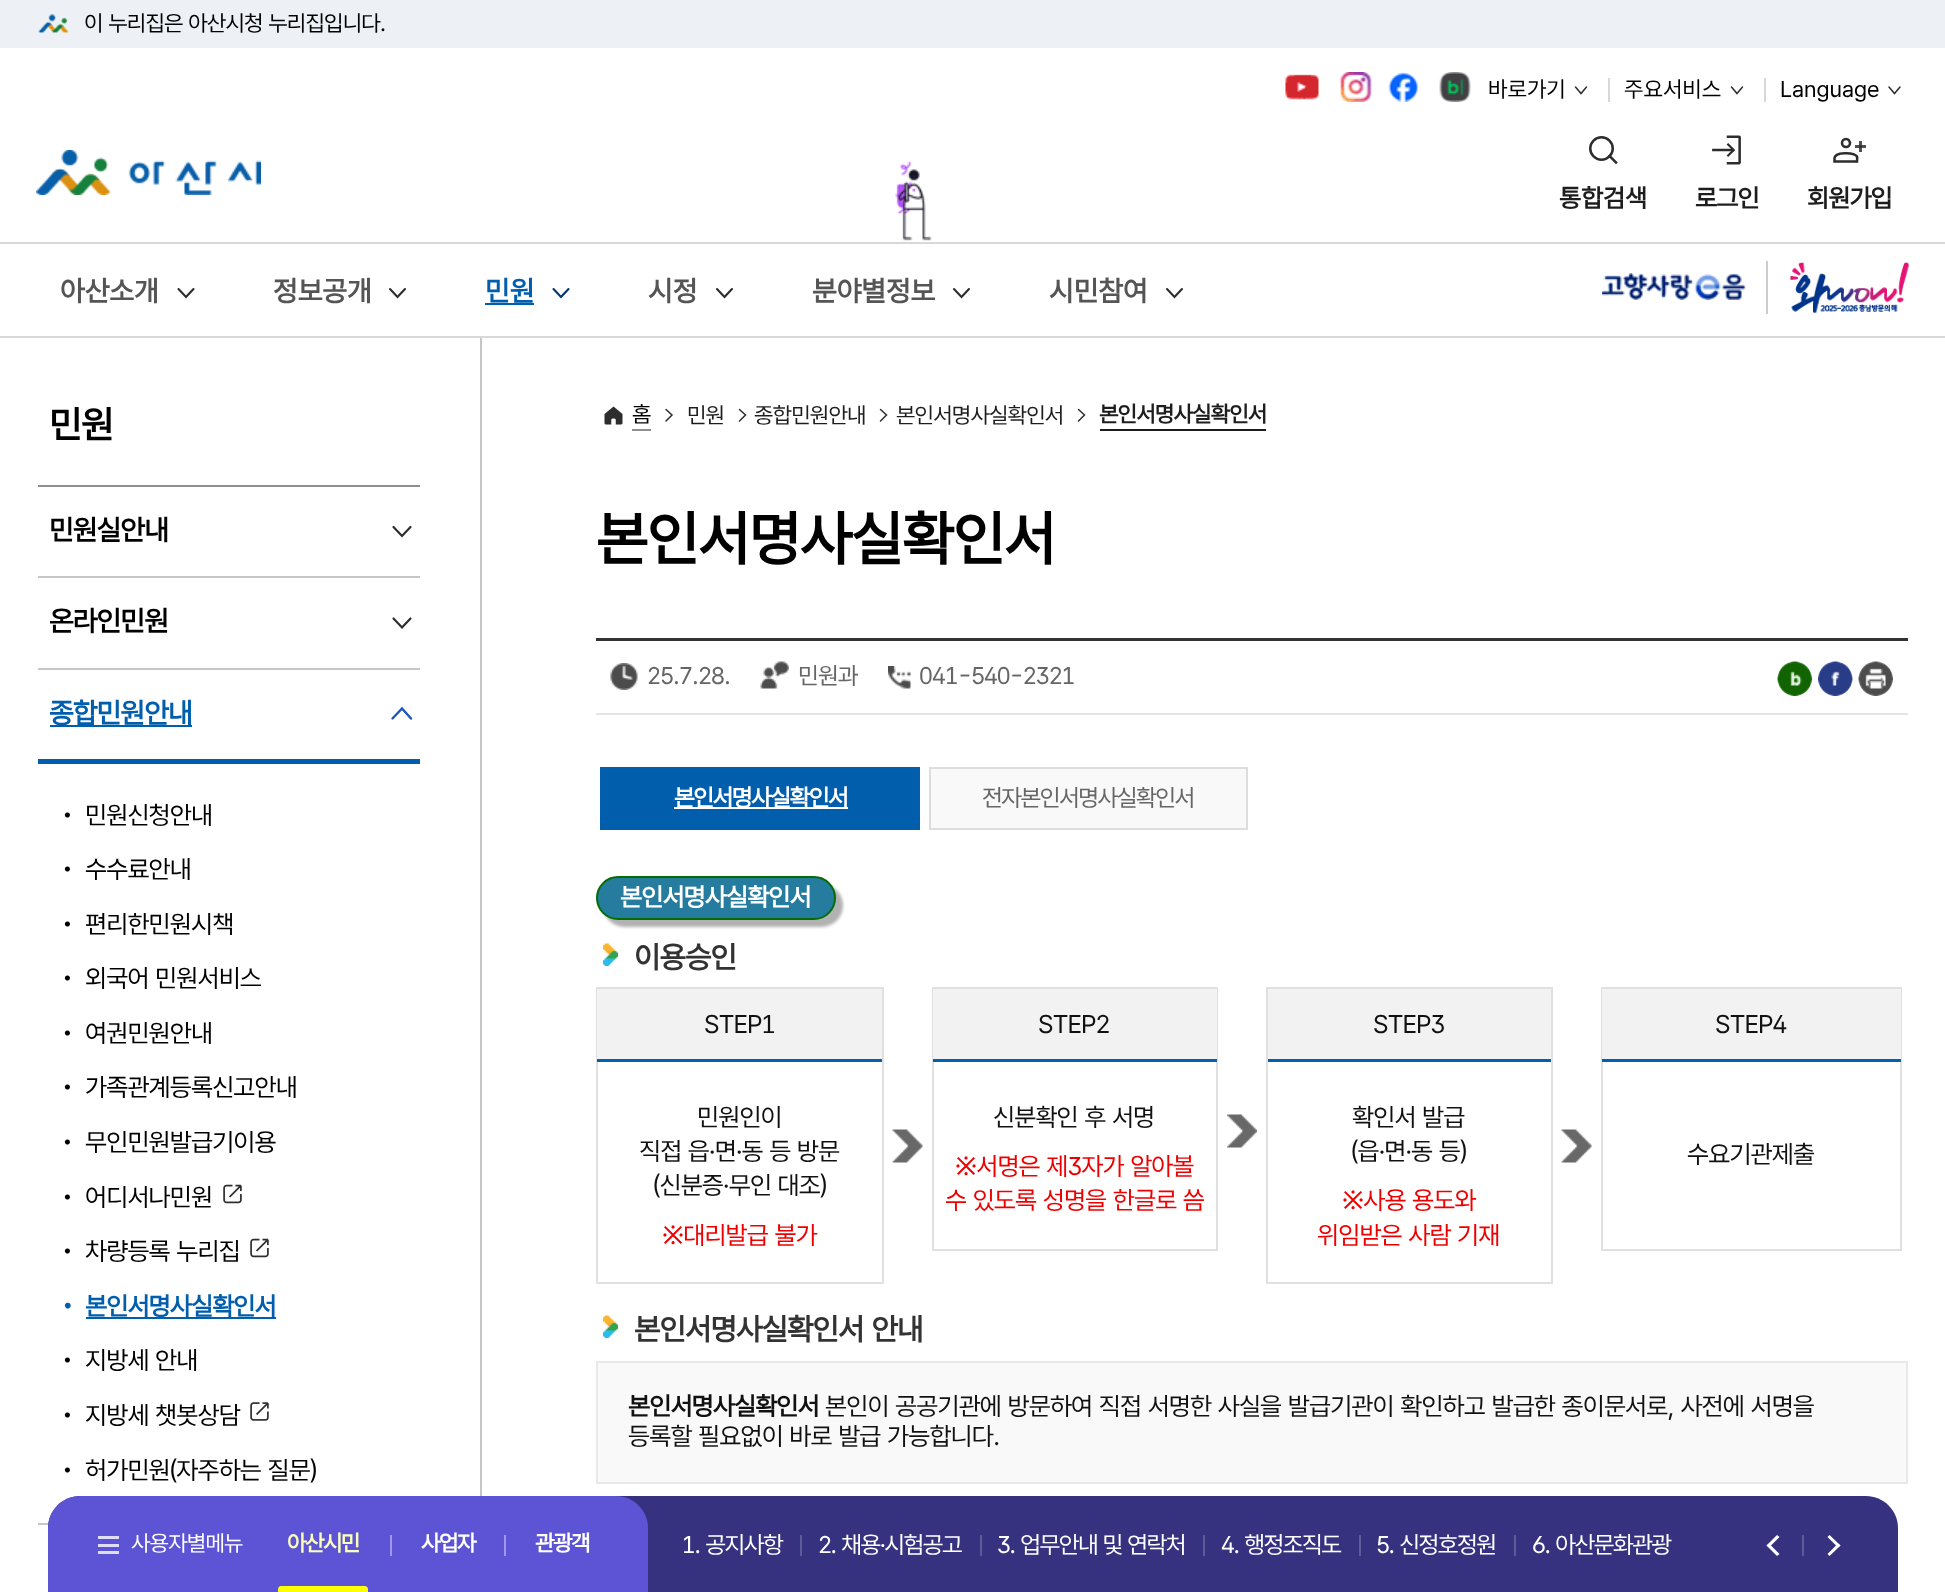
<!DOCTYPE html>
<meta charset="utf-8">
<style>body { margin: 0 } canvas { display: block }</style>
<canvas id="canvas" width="1945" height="1592"></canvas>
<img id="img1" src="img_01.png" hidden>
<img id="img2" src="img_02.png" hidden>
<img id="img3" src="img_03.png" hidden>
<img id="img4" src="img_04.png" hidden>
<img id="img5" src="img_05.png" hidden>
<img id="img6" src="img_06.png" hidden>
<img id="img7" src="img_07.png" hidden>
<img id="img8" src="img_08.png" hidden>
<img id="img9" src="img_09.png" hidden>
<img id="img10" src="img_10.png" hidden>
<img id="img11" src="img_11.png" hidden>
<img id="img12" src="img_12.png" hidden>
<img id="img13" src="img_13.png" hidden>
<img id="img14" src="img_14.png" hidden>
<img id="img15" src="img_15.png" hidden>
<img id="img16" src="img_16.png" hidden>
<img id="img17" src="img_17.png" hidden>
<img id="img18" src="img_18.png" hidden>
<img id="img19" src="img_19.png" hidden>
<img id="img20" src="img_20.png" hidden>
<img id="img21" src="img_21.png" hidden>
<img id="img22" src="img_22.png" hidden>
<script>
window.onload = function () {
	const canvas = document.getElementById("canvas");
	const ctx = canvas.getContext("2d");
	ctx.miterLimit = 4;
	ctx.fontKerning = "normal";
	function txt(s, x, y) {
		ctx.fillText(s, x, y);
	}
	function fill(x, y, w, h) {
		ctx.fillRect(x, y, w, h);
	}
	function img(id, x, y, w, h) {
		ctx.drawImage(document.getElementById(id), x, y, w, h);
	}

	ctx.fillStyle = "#FFFFFF";
	fill(0, 0, 1945, 1592);
	ctx.fillStyle = "#515151";
	fill(1855, 145, 11, 3);
	ctx.fillStyle = "#EDF1F5";
	fill(0, 0, 1945, 48);
	img("img1", 38, 14, 31, 19);
	ctx.fillStyle = "#D8D8D8";
	fill(0, 336, 1945, 2);
	img("img2", 1285, 74, 34, 27);
	img("img3", 1340, 72, 32, 30);
	img("img4", 1388, 72, 30, 30);
	img("img5", 1439, 72, 32, 30);
	ctx.beginPath();
	ctx.moveTo(1575.5, 87);
	ctx.lineTo(1581, 93.5);
	ctx.lineTo(1586.5, 87);
	ctx.strokeStyle = "#2D2D2D";
	ctx.lineWidth = 1.5;
	ctx.lineCap = "round";
	ctx.stroke();
	fill(1608, 78, 2, 24);
	ctx.beginPath();
	ctx.moveTo(1731.5, 87);
	ctx.lineTo(1737, 93.5);
	ctx.lineTo(1742.5, 87);
	ctx.stroke();
	fill(1764, 78, 2, 24);
	ctx.beginPath();
	ctx.moveTo(1889, 87);
	ctx.lineTo(1894.5, 93.5);
	ctx.lineTo(1900, 87);
	ctx.stroke();
	img("img6", 36, 150, 225, 45);
	img("img7", 895, 160, 37, 81);
	ctx.beginPath();
	ctx.arc(1601.5, 148.5, 11.25, 0, Math.PI * 2);
	ctx.lineWidth = 2.5;
	ctx.stroke();
	ctx.beginPath();
	ctx.moveTo(1609.5, 156);
	ctx.lineTo(1616, 162.5);
	ctx.lineCap = "square";
	ctx.stroke();
	img("img8", 1712, 135, 29, 30);
	ctx.beginPath();
	ctx.arc(1846, 143, 4, 0, Math.PI * 2);
	ctx.stroke();
	ctx.beginPath();
	ctx.moveTo(1834.5, 158.5);
	ctx.bezierCurveTo(1834.5, 151.5, 1854, 152, 1857, 156.5);
	ctx.bezierCurveTo(1857.5, 158, 1857, 160, 1857, 161.5);
	ctx.lineTo(1834.5, 161.5);
	ctx.closePath();
	ctx.lineCap = "butt";
	ctx.stroke();
	ctx.fillStyle = "#505050";
	fill(1859, 141, 3, 11);
	ctx.fillStyle = "#333333";
	fill(1859, 145, 3, 3);
	ctx.fillStyle = "#D8D8D8";
	fill(0, 242, 1945, 2);
	ctx.beginPath();
	ctx.moveTo(178.5, 289);
	ctx.lineTo(186, 297);
	ctx.lineTo(193.5, 289);
	ctx.lineWidth = 2.1;
	ctx.lineCap = "round";
	ctx.stroke();
	ctx.beginPath();
	ctx.moveTo(390, 289);
	ctx.lineTo(397.5, 297);
	ctx.lineTo(405, 289);
	ctx.stroke();
	ctx.fillStyle = "#005EAD";
	fill(485, 303, 49, 2);
	ctx.beginPath();
	ctx.moveTo(553.5, 289);
	ctx.lineTo(561, 297);
	ctx.lineTo(568.5, 289);
	ctx.strokeStyle = "#003675";
	ctx.stroke();
	ctx.beginPath();
	ctx.moveTo(717, 289);
	ctx.lineTo(724.5, 297);
	ctx.lineTo(732, 289);
	ctx.strokeStyle = "#2D2D2D";
	ctx.stroke();
	ctx.beginPath();
	ctx.moveTo(954, 289);
	ctx.lineTo(961.5, 297);
	ctx.lineTo(969, 289);
	ctx.stroke();
	ctx.beginPath();
	ctx.moveTo(1167, 289);
	ctx.lineTo(1174.5, 297);
	ctx.lineTo(1182, 289);
	ctx.stroke();
	img("img9", 1602, 273, 144, 27);
	ctx.fillStyle = "#CCCCCC";
	fill(1766, 261, 2, 53);
	img("img10", 1790, 262, 119, 51);
	ctx.fillStyle = "#C6C6C6";
	fill(480, 338, 2, 1158);
	ctx.fillStyle = "#8E8E8E";
	fill(38, 485, 382, 2);
	ctx.beginPath();
	ctx.moveTo(393.5, 527);
	ctx.lineTo(402, 536);
	ctx.lineTo(410.5, 527);
	ctx.lineWidth = 2.2;
	ctx.stroke();
	ctx.fillStyle = "#C6C6C6";
	fill(38, 576, 382, 2);
	ctx.beginPath();
	ctx.moveTo(393.5, 618.5);
	ctx.lineTo(402, 627.5);
	ctx.lineTo(410.5, 618.5);
	ctx.stroke();
	fill(38, 668, 382, 2);
	ctx.fillStyle = "#005EAD";
	fill(50, 725, 142, 2);
	ctx.beginPath();
	ctx.moveTo(411, 718.5);
	ctx.lineTo(402, 708.5);
	ctx.lineTo(392.5, 718.5);
	ctx.strokeStyle = "#1D56BC";
	ctx.lineWidth = 2.4;
	ctx.stroke();
	fill(38, 759, 382, 5);
	img("img11", 223, 1184, 19, 20);
	img("img11", 250, 1238, 19, 20);
	fill(86, 1317, 190, 2);
	img("img12", 250, 1402, 19, 19);
	ctx.fillStyle = "#C6C6C6";
	fill(38, 1523, 11, 2);
	img("img13", 604, 406, 19, 19);
	ctx.fillStyle = "#8E8E8E";
	fill(632, 429, 19, 2);
	ctx.beginPath();
	ctx.moveTo(666, 421);
	ctx.lineTo(672, 415);
	ctx.lineTo(666, 409.5);
	ctx.strokeStyle = "#2D2D2D";
	ctx.lineWidth = 1.5;
	ctx.stroke();
	ctx.beginPath();
	ctx.moveTo(739.5, 421);
	ctx.lineTo(745.5, 415);
	ctx.lineTo(739.5, 409.5);
	ctx.stroke();
	ctx.beginPath();
	ctx.moveTo(880.5, 421);
	ctx.lineTo(886.5, 415);
	ctx.lineTo(880.5, 409.5);
	ctx.stroke();
	ctx.beginPath();
	ctx.moveTo(1078.5, 421);
	ctx.lineTo(1084.5, 415);
	ctx.lineTo(1078.5, 409.5);
	ctx.stroke();
	ctx.fillStyle = "#1D1D1D";
	fill(1100, 429, 166, 2);
	ctx.fillStyle = "#333333";
	fill(596, 638, 1312, 3);
	ctx.fillStyle = "#E4E4E4";
	fill(596, 713, 1312, 2);
	img("img14", 610, 663, 28, 27);
	img("img15", 760, 661, 29, 28);
	img("img16", 888, 666, 23, 23);
	img("img17", 1777, 661, 35, 35);
	img("img18", 1818, 661, 35, 35);
	img("img19", 1858, 661, 35, 35);
	ctx.fillStyle = "#005EAD";
	fill(600, 767, 320, 63);
	ctx.fillStyle = "#FFFFFF";
	fill(674, 807, 174, 2);
	ctx.fillStyle = "#F9F9F9";
	ctx.beginPath();
	ctx.rect(930, 768, 317, 61);
	ctx.fill();
	ctx.strokeStyle = "#DDDDDD";
	ctx.lineWidth = 2;
	ctx.stroke();
	ctx.fillStyle = "#B2B2B2";
	ctx.filter = "blur(1.5px)";
	ctx.beginPath();
	ctx.roundRect(603, 884, 240, 43, 21.5);
	ctx.fill();
	ctx.filter = "none";
	ctx.fillStyle = "#257C9E";
	ctx.beginPath();
	ctx.roundRect(597, 877, 238, 42, 21);
	ctx.fill();
	ctx.strokeStyle = "#056C04";
	ctx.stroke();
	img("img20", 603, 943, 15, 23);
	ctx.strokeStyle = "#E0E0E0";
	ctx.strokeRect(597, 988, 286, 295);
	ctx.fillStyle = "#F2F2F2";
	fill(597, 989, 285, 70);
	ctx.fillStyle = "#0061B1";
	fill(597, 1059, 285, 3);
	img("img21", 892, 1129, 31, 34);
	ctx.strokeRect(933, 988, 284, 262);
	ctx.fillStyle = "#F2F2F2";
	fill(933, 989, 284, 70);
	ctx.fillStyle = "#0061B1";
	fill(933, 1059, 284, 3);
	img("img22", 1227, 1114, 30, 34);
	ctx.strokeRect(1267, 988, 285, 295);
	ctx.fillStyle = "#F2F2F2";
	fill(1268, 989, 283, 70);
	ctx.fillStyle = "#0061B1";
	fill(1268, 1059, 283, 3);
	img("img21", 1561, 1129, 31, 34);
	ctx.strokeRect(1602, 988, 299, 262);
	ctx.fillStyle = "#F2F2F2";
	fill(1602, 989, 299, 70);
	ctx.fillStyle = "#0061B1";
	fill(1602, 1059, 299, 3);
	img("img20", 603, 1315, 15, 23);
	ctx.fillStyle = "#F9F9F9";
	ctx.beginPath();
	ctx.rect(597, 1362, 1310, 121);
	ctx.fill();
	ctx.strokeStyle = "#E8E8E8";
	ctx.stroke();
	ctx.fillStyle = "#373280";
	ctx.beginPath();
	ctx.moveTo(80, 1496);
	ctx.lineTo(1866, 1496);
	ctx.bezierCurveTo(1883.5, 1496, 1898, 1510.5, 1898, 1528);
	ctx.lineTo(1898, 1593);
	ctx.lineTo(48, 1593);
	ctx.lineTo(48, 1528);
	ctx.bezierCurveTo(48, 1510.5, 62.5, 1496, 80, 1496);
	ctx.closePath();
	ctx.fill();
	ctx.fillStyle = "#5D54D5";
	ctx.beginPath();
	ctx.moveTo(80, 1496);
	ctx.lineTo(616, 1496);
	ctx.bezierCurveTo(633.5, 1496, 648, 1510.5, 648, 1528);
	ctx.lineTo(648, 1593);
	ctx.lineTo(48, 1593);
	ctx.lineTo(48, 1528);
	ctx.bezierCurveTo(48, 1510.5, 62.5, 1496, 80, 1496);
	ctx.closePath();
	ctx.fill();
	ctx.fillStyle = "#DFDDF7";
	fill(98, 1536, 21, 3);
	fill(98, 1551, 21, 3);
	fill(98, 1544, 21, 3);
	ctx.fillStyle = "#FFFF00";
	ctx.beginPath();
	ctx.moveTo(281, 1586);
	ctx.lineTo(365, 1586);
	ctx.bezierCurveTo(366.5, 1586, 368, 1587.5, 368, 1589);
	ctx.lineTo(368, 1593);
	ctx.lineTo(278, 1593);
	ctx.lineTo(278, 1589);
	ctx.bezierCurveTo(278, 1587.5, 279.5, 1586, 281, 1586);
	ctx.closePath();
	ctx.fill();
	ctx.fillStyle = "#9E98E6";
	fill(390, 1535, 2, 21);
	fill(504, 1535, 2, 21);
	ctx.fillStyle = "#5F5B99";
	fill(800, 1535, 2, 21);
	fill(980, 1535, 2, 21);
	fill(1203, 1535, 2, 21);
	fill(1359, 1535, 2, 21);
	fill(1514, 1535, 2, 21);
	ctx.fillStyle = "#FFFFFF";
	ctx.beginPath();
	ctx.moveTo(1769, 1543.5);
	ctx.lineTo(1779.5, 1554);
	ctx.lineTo(1777, 1556);
	ctx.lineTo(1766.5, 1545.5);
	ctx.closePath();
	ctx.fill();
	ctx.beginPath();
	ctx.moveTo(1777, 1535);
	ctx.lineTo(1779.5, 1537);
	ctx.lineTo(1769, 1547.5);
	ctx.lineTo(1766.5, 1545.5);
	ctx.closePath();
	ctx.fill();
	ctx.fillStyle = "#5F5B99";
	fill(1802, 1535, 2, 21);
	ctx.fillStyle = "#FFFFFF";
	ctx.beginPath();
	ctx.moveTo(1829.5, 1535);
	ctx.lineTo(1840.5, 1545.5);
	ctx.lineTo(1838, 1547.5);
	ctx.lineTo(1827.5, 1537);
	ctx.closePath();
	ctx.fill();
	ctx.beginPath();
	ctx.moveTo(1838, 1543.5);
	ctx.lineTo(1840.5, 1545.5);
	ctx.lineTo(1829.5, 1556);
	ctx.lineTo(1827.5, 1554);
	ctx.closePath();
	ctx.fill();
	ctx.letterSpacing = "-0.85px";
	ctx.font = "22.5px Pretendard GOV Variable";
	ctx.fillStyle = "#000000";
	txt("이 누리집은 아산시청 누리집입니다.", 84, 31);
	ctx.letterSpacing = "0px";
	txt("바로가기", 1488, 97);
	txt("주요서비스", 1624, 97);
	txt("Language", 1780, 97);
	ctx.font = "bold 25.5px Pretendard GOV Variable";
	ctx.fillStyle = "#1D1D1D";
	txt("통합검색", 1559, 207);
	ctx.letterSpacing = "-0.85px";
	txt("로그인", 1695, 207);
	txt("회원가입", 1807, 207);
	ctx.letterSpacing = "0px";
	ctx.font = "bold 28.5px Pretendard GOV Variable";
	ctx.fillStyle = "#555555";
	txt("아산소개", 60, 301);
	txt("정보공개", 273, 301);
	ctx.fillStyle = "#005EAD";
	txt("민원", 485, 301);
	ctx.fillStyle = "#555555";
	txt("시정", 648, 301);
	txt("분야별정보", 812, 301);
	txt("시민참여", 1049, 301);
	ctx.letterSpacing = "-0.85px";
	ctx.font = "bold 38px Pretendard GOV Variable";
	ctx.fillStyle = "#000000";
	txt("민원", 49, 438);
	ctx.font = "bold 28.5px Pretendard GOV Variable";
	txt("민원실안내", 49, 540);
	txt("온라인민원", 49, 631);
	ctx.fillStyle = "#005EAD";
	txt("종합민원안내", 49, 723);
	ctx.font = "25.5px Pretendard GOV Variable";
	ctx.fillStyle = "#000000";
	txt("•", 61, 824);
	txt("민원신청안내", 85, 824);
	txt("•", 61, 878);
	txt("수수료안내", 85, 878);
	txt("•", 61, 933);
	txt("편리한민원시책", 85, 933);
	txt("•", 61, 987);
	txt("외국어 민원서비스", 85, 987);
	txt("•", 61, 1042);
	txt("여권민원안내", 85, 1042);
	txt("•", 61, 1096);
	txt("가족관계등록신고안내", 85, 1096);
	txt("•", 61, 1151);
	txt("무인민원발급기이용", 85, 1151);
	txt("•", 61, 1206);
	txt("어디서나민원", 85, 1206);
	txt("•", 61, 1260);
	txt("차량등록 누리집", 85, 1260);
	ctx.font = "bold 25.5px Pretendard GOV Variable";
	ctx.fillStyle = "#005EAD";
	txt("•", 61, 1315);
	txt("본인서명사실확인서", 85, 1315);
	ctx.font = "25.5px Pretendard GOV Variable";
	ctx.fillStyle = "#000000";
	txt("•", 61, 1369);
	txt("지방세 안내", 85, 1369);
	txt("•", 61, 1424);
	txt("지방세 챗봇상담", 85, 1424);
	txt("•", 61, 1479);
	txt("허가민원(자주하는 질문)", 85, 1479);
	ctx.font = "22.5px Pretendard GOV Variable";
	txt("홈", 632, 422);
	ctx.fillStyle = "#1D1D1D";
	txt("민원", 687, 423);
	txt("종합민원안내", 754, 423);
	txt("본인서명사실확인서", 896, 423);
	ctx.font = "bold 22.5px Pretendard GOV Variable";
	txt("본인서명사실확인서", 1099, 422);
	ctx.font = "bold 60px Pretendard GOV Variable";
	ctx.fillStyle = "#000000";
	txt("본인서명사실확인서", 596, 560);
	ctx.font = "24px Pretendard GOV Variable";
	ctx.fillStyle = "#666666";
	txt("25.7.28.", 647, 684);
	txt("민원과", 798, 684);
	txt("041-540-2321", 919, 684);
	ctx.letterSpacing = "-1.5px";
	ctx.font = "bold 24px Pretendard GOV Variable";
	ctx.fillStyle = "#FFFFFF";
	txt("본인서명사실확인서", 674, 806);
	ctx.font = "24px Pretendard GOV Variable";
	ctx.fillStyle = "#666666";
	txt("전자본인서명사실확인서", 982, 806);
	ctx.letterSpacing = "-0.85px";
	ctx.font = "bold 25.5px Pretendard GOV Variable";
	ctx.fillStyle = "#FFFFFF";
	txt("본인서명사실확인서", 620, 906);
	ctx.font = "bold 30.5px Pretendard GOV Variable";
	ctx.fillStyle = "#333333";
	txt("이용승인", 634, 968);
	ctx.font = "25.5px Pretendard GOV Variable";
	ctx.fillStyle = "#111111";
	txt("STEP1", 704, 1033);
	txt("민원인이", 697, 1126);
	txt("직접 읍·면·동 등 방문", 639, 1160);
	txt("(신분증·무인 대조)", 653, 1194);
	ctx.fillStyle = "#EE0000";
	txt("※대리발급 불가", 662, 1244);
	ctx.fillStyle = "#111111";
	txt("STEP2", 1038, 1033);
	txt("신분확인 후 서명", 993, 1126);
	ctx.fillStyle = "#EE0000";
	txt("※서명은 제3자가 알아볼", 955, 1175);
	txt("수 있도록 성명을 한글로 씀", 945, 1209);
	ctx.fillStyle = "#111111";
	txt("STEP3", 1373, 1033);
	txt("확인서 발급", 1352, 1126);
	txt("(읍·면·동 등)", 1351, 1160);
	ctx.fillStyle = "#EE0000";
	txt("※사용 용도와", 1342, 1209);
	txt("위임받은 사람 기재", 1317, 1244);
	ctx.fillStyle = "#111111";
	txt("STEP4", 1715, 1033);
	txt("수요기관제출", 1687, 1163);
	ctx.font = "bold 30.5px Pretendard GOV Variable";
	ctx.fillStyle = "#333333";
	txt("본인서명사실확인서 안내", 634, 1340);
	ctx.font = "bold 25.5px Pretendard GOV Variable";
	ctx.fillStyle = "#111111";
	txt("본인서명사실확인서", 628, 1415);
	ctx.font = "25.5px Pretendard GOV Variable";
	txt("본인이 공공기관에 방문하여 직접 서명한 사실을 발급기관이 확인하고 발급한 종이문서로, 사전에 서명을", 825, 1415);
	txt("등록할 필요없이 바로 발급 가능합니다.", 628, 1445);
	ctx.font = "22.5px Pretendard GOV Variable";
	ctx.fillStyle = "#FFFFFF";
	txt("사용자별메뉴", 131, 1551);
	ctx.letterSpacing = "-1.5px";
	ctx.font = "bold 22.5px Pretendard GOV Variable";
	ctx.fillStyle = "#FAFEBA";
	txt("아산시민", 287, 1551);
	ctx.fillStyle = "#FFFFFF";
	txt("사업자", 421, 1551);
	txt("관광객", 535, 1551);
	ctx.font = "24px Pretendard GOV Variable";
	txt("1. 공지사항", 682, 1553);
	txt("2. 채용·시험공고", 818, 1553);
	txt("3. 업무안내 및 연락처", 997, 1553);
	txt("4. 행정조직도", 1221, 1553);
	txt("5. 신정호정원", 1376, 1553);
	txt("6. 아산문화관광", 1532, 1553);
};
</script>
